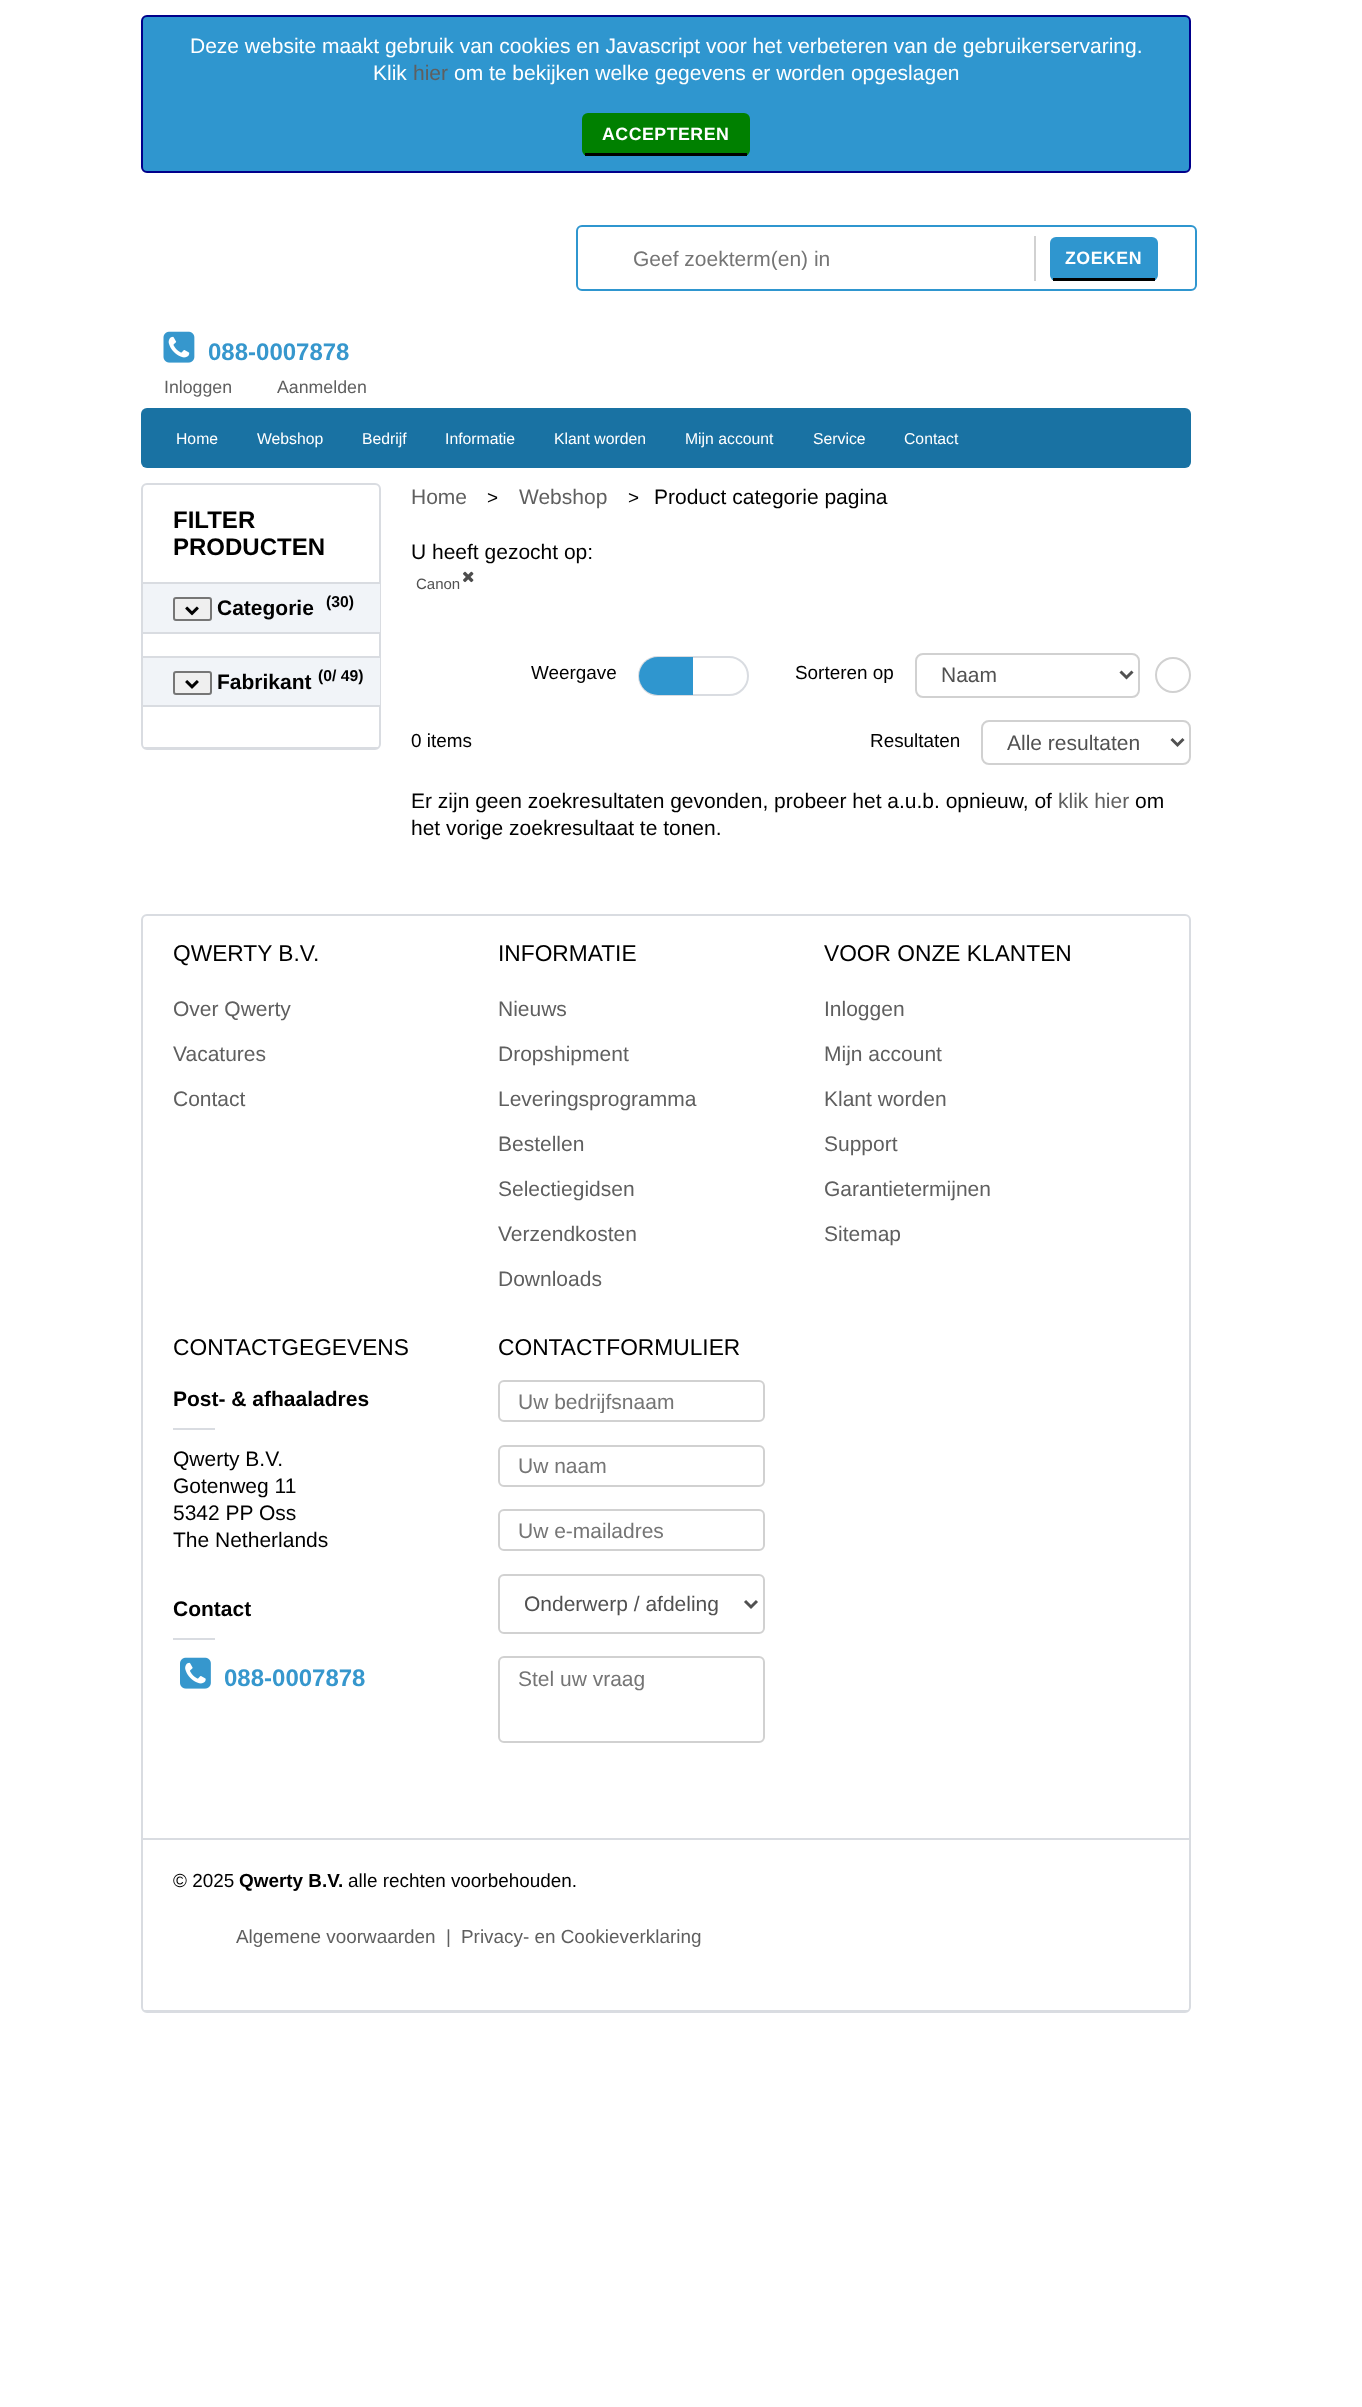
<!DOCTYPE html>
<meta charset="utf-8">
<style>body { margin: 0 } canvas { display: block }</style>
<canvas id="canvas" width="1362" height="2407"></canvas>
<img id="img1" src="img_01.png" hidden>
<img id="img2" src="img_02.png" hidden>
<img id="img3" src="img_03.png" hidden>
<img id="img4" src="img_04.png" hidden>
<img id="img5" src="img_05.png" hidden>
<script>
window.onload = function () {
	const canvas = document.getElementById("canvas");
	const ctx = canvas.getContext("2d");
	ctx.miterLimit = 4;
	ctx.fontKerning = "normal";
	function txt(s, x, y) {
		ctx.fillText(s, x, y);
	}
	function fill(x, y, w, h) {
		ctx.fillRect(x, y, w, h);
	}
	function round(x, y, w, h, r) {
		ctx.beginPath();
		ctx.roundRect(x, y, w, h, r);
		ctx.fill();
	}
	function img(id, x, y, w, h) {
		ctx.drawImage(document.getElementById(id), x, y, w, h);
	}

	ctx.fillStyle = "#FFFFFF";
	fill(0, 0, 1362, 2407);
	ctx.fillStyle = "#2F96CF";
	ctx.beginPath();
	ctx.roundRect(142, 16, 1048, 156, 5);
	ctx.fill();
	ctx.strokeStyle = "#00008B";
	ctx.lineWidth = 2;
	ctx.stroke();
	ctx.fillStyle = "#008000";
	round(582, 113, 168, 43, 6);
	ctx.fillStyle = "#000000";
	fill(585, 153, 162, 3);
	ctx.beginPath();
	ctx.roundRect(577, 226, 619, 64, 5);
	ctx.strokeStyle = "#2F96CF";
	ctx.stroke();
	ctx.fillStyle = "#D1D1D1";
	fill(1034, 236, 2, 45);
	ctx.fillStyle = "#2F96CF";
	round(1050, 237, 108, 44, 6);
	ctx.fillStyle = "#000000";
	fill(1053, 278, 102, 3);
	img("img1", 163, 331, 32, 32);
	ctx.fillStyle = "#1972A3";
	round(141, 408, 1050, 60, 6);
	ctx.beginPath();
	ctx.roundRect(142, 484, 238, 265, 5);
	ctx.strokeStyle = "#D9DCE1";
	ctx.stroke();
	ctx.fillStyle = "#D9DCE1";
	fill(144, 747, 234, 1);
	ctx.fillStyle = "#F1F4F8";
	fill(143, 584, 237, 48);
	ctx.fillStyle = "#D9DCE1";
	fill(143, 582, 237, 2);
	fill(143, 632, 237, 2);
	ctx.fillStyle = "#EFEFEF";
	ctx.beginPath();
	ctx.roundRect(174, 598, 37, 22, 2);
	ctx.fill();
	ctx.strokeStyle = "#767676";
	ctx.stroke();
	img("img2", 185, 606, 14, 10);
	ctx.fillStyle = "#F1F4F8";
	fill(143, 658, 237, 47);
	ctx.fillStyle = "#D9DCE1";
	fill(143, 656, 237, 2);
	fill(143, 705, 237, 2);
	ctx.fillStyle = "#EFEFEF";
	ctx.beginPath();
	ctx.roundRect(174, 672, 37, 22, 2);
	ctx.fill();
	ctx.stroke();
	img("img3", 185, 680, 14, 9);
	img("img4", 463, 571, 11, 12);
	ctx.beginPath();
	ctx.roundRect(639, 657, 109, 38, 19);
	ctx.strokeStyle = "#D9DCE1";
	ctx.stroke();
	ctx.fillStyle = "#2F96CF";
	ctx.beginPath();
	ctx.roundRect(639, 657, 54, 38, [19, 0, 0, 19]);
	ctx.fill();
	ctx.beginPath();
	ctx.roundRect(916, 654, 223, 43, 7);
	ctx.strokeStyle = "#D1D1D1";
	ctx.stroke();
	ctx.beginPath();
	ctx.moveTo(1120.5, 671.5);
	ctx.lineTo(1126.5, 677.5);
	ctx.lineTo(1132.5, 671.5);
	ctx.strokeStyle = "#515151";
	ctx.lineWidth = 3;
	ctx.stroke();
	ctx.beginPath();
	ctx.arc(1173, 675, 17, 0, Math.PI * 2);
	ctx.strokeStyle = "#D1D1D1";
	ctx.lineWidth = 2;
	ctx.stroke();
	ctx.beginPath();
	ctx.roundRect(982, 721, 208, 43, 7);
	ctx.stroke();
	ctx.beginPath();
	ctx.moveTo(1171.5, 739);
	ctx.lineTo(1177.5, 745);
	ctx.lineTo(1183.5, 739);
	ctx.strokeStyle = "#515151";
	ctx.lineWidth = 3;
	ctx.stroke();
	ctx.beginPath();
	ctx.roundRect(142, 915, 1048, 1097, 5);
	ctx.strokeStyle = "#D9DCE1";
	ctx.lineWidth = 2;
	ctx.stroke();
	ctx.fillStyle = "#D9DCE1";
	fill(144, 2010, 1044, 1);
	fill(173, 1428, 42, 2);
	fill(173, 1638, 42, 2);
	img("img5", 180, 1657, 31, 32);
	ctx.beginPath();
	ctx.roundRect(499, 1381, 265, 40, 5);
	ctx.strokeStyle = "#D1D1D1";
	ctx.stroke();
	ctx.beginPath();
	ctx.roundRect(499, 1446, 265, 40, 5);
	ctx.stroke();
	ctx.beginPath();
	ctx.roundRect(499, 1510, 265, 40, 5);
	ctx.stroke();
	ctx.beginPath();
	ctx.roundRect(499, 1575, 265, 58, 5);
	ctx.stroke();
	ctx.beginPath();
	ctx.moveTo(745, 1601);
	ctx.lineTo(751, 1607);
	ctx.lineTo(757, 1601);
	ctx.strokeStyle = "#515151";
	ctx.lineWidth = 3;
	ctx.stroke();
	ctx.beginPath();
	ctx.roundRect(499, 1657, 265, 85, 5);
	ctx.strokeStyle = "#D1D1D1";
	ctx.lineWidth = 2;
	ctx.stroke();
	fill(143, 1838, 1047, 2);
	ctx.font = "21px Liberation Sans";
	ctx.fillStyle = "#FFFFFF";
	txt("Deze website maakt gebruik van cookies en Javascript voor het verbeteren van de gebruikerservaring.", 190, 53);
	txt("Klik", 373, 80);
	ctx.fillStyle = "#5F5F5F";
	txt("hier", 413, 80);
	ctx.fillStyle = "#FFFFFF";
	txt("om te bekijken welke gegevens er worden opgeslagen", 454, 80);
	ctx.letterSpacing = "0.5px";
	ctx.font = "bold 17.75px Liberation Sans";
	txt("ACCEPTEREN", 602, 140);
	ctx.save();
	ctx.beginPath();
	ctx.rect(633, 246, 383, 24);
	ctx.clip();
	ctx.letterSpacing = "0px";
	ctx.font = "21px Liberation Sans";
	ctx.fillStyle = "#757575";
	txt("Geef zoekterm(en) in", 633, 266);
	ctx.restore();
	txt("ZOEKEN", 1065, 264);
	ctx.letterSpacing = "0px";
	ctx.font = "bold 24px Liberation Sans";
	ctx.fillStyle = "#3697CD";
	txt("088-0007878", 208, 360);
	ctx.font = "17.75px Liberation Sans";
	ctx.fillStyle = "#5F5F5F";
	txt("Inloggen", 164, 393);
	txt("Aanmelden", 277, 393);
	ctx.font = "15.75px Liberation Sans";
	ctx.fillStyle = "#FFFFFF";
	txt("Home", 176, 444);
	txt("Webshop", 257, 444);
	txt("Bedrijf", 362, 444);
	txt("Informatie", 445, 444);
	txt("Klant worden", 554, 444);
	txt("Mijn account", 685, 444);
	txt("Service", 813, 444);
	txt("Contact", 904, 444);
	ctx.font = "bold 24px Liberation Sans";
	ctx.fillStyle = "#000000";
	txt("FILTER", 173, 528);
	txt("PRODUCTEN", 173, 555);
	ctx.font = "bold 21px Liberation Sans";
	txt("Categorie", 217, 615);
	ctx.font = "bold 15.75px Liberation Sans";
	txt("(30)", 326, 607);
	ctx.font = "bold 21px Liberation Sans";
	txt("Fabrikant", 217, 689);
	ctx.font = "bold 15.75px Liberation Sans";
	txt("(0/ 49)", 318, 681);
	ctx.font = "21px Liberation Sans";
	ctx.fillStyle = "#5F5F5F";
	txt("Home", 411, 504);
	ctx.font = "18.9px Liberation Sans";
	ctx.fillStyle = "#000000";
	txt(">", 487, 504);
	ctx.font = "21px Liberation Sans";
	ctx.fillStyle = "#5F5F5F";
	txt("Webshop", 519, 504);
	ctx.font = "18.9px Liberation Sans";
	ctx.fillStyle = "#000000";
	txt(">", 628, 504);
	ctx.font = "21px Liberation Sans";
	txt("Product categorie pagina", 654, 504);
	txt("U heeft gezocht op:", 411, 559);
	ctx.font = "15px Liberation Sans";
	ctx.fillStyle = "#515151";
	txt("Canon", 416, 589);
	ctx.font = "18.9px Liberation Sans";
	ctx.fillStyle = "#000000";
	txt("Weergave", 531, 679);
	txt("Sorteren op", 795, 679);
	ctx.font = "21px Liberation Sans";
	ctx.fillStyle = "#515151";
	txt("Naam", 941, 682);
	ctx.font = "18.9px Liberation Sans";
	ctx.fillStyle = "#000000";
	txt("0 items", 411, 747);
	txt("Resultaten", 870, 747);
	ctx.font = "21px Liberation Sans";
	ctx.fillStyle = "#515151";
	txt("Alle resultaten", 1007, 750);
	ctx.fillStyle = "#000000";
	txt("Er zijn geen zoekresultaten gevonden, probeer het a.u.b. opnieuw, of", 411, 808);
	ctx.fillStyle = "#5F5F5F";
	txt("klik hier", 1058, 808);
	ctx.fillStyle = "#000000";
	txt("om", 1135, 808);
	txt("het vorige zoekresultaat te tonen.", 411, 835);
	ctx.font = "22.75px Liberation Sans";
	txt("QWERTY B.V.", 173, 961);
	ctx.font = "21px Liberation Sans";
	ctx.fillStyle = "#5F5F5F";
	txt("Over Qwerty", 173, 1016);
	txt("Vacatures", 173, 1061);
	txt("Contact", 173, 1106);
	ctx.font = "22.75px Liberation Sans";
	ctx.fillStyle = "#000000";
	txt("INFORMATIE", 498, 961);
	ctx.font = "21px Liberation Sans";
	ctx.fillStyle = "#5F5F5F";
	txt("Nieuws", 498, 1016);
	txt("Dropshipment", 498, 1061);
	txt("Leveringsprogramma", 498, 1106);
	txt("Bestellen", 498, 1151);
	txt("Selectiegidsen", 498, 1196);
	txt("Verzendkosten", 498, 1241);
	txt("Downloads", 498, 1286);
	ctx.font = "22.75px Liberation Sans";
	ctx.fillStyle = "#000000";
	txt("VOOR ONZE KLANTEN", 824, 961);
	ctx.font = "21px Liberation Sans";
	ctx.fillStyle = "#5F5F5F";
	txt("Inloggen", 824, 1016);
	txt("Mijn account", 824, 1061);
	txt("Klant worden", 824, 1106);
	txt("Support", 824, 1151);
	txt("Garantietermijnen", 824, 1196);
	txt("Sitemap", 824, 1241);
	ctx.font = "22.75px Liberation Sans";
	ctx.fillStyle = "#000000";
	txt("CONTACTGEGEVENS", 173, 1355);
	ctx.font = "bold 21px Liberation Sans";
	txt("Post- & afhaaladres", 173, 1406);
	ctx.font = "21px Liberation Sans";
	txt("Qwerty B.V.", 173, 1466);
	txt("Gotenweg 11", 173, 1493);
	txt("5342 PP Oss", 173, 1520);
	txt("The Netherlands", 173, 1547);
	ctx.font = "bold 21px Liberation Sans";
	txt("Contact", 173, 1616);
	ctx.font = "bold 24px Liberation Sans";
	ctx.fillStyle = "#3697CD";
	txt("088-0007878", 224, 1686);
	ctx.font = "22.75px Liberation Sans";
	ctx.fillStyle = "#000000";
	txt("CONTACTFORMULIER", 498, 1355);
	ctx.save();
	ctx.beginPath();
	ctx.rect(518, 1389, 228, 24);
	ctx.clip();
	ctx.font = "21px Liberation Sans";
	ctx.fillStyle = "#757575";
	txt("Uw bedrijfsnaam", 518, 1409);
	ctx.restore();
	ctx.font = "21px Liberation Sans";
	ctx.fillStyle = "#757575";
	txt("Uw naam", 518, 1473);
	txt("Uw e-mailadres", 518, 1538);
	ctx.fillStyle = "#515151";
	txt("Onderwerp / afdeling", 524, 1611);
	ctx.fillStyle = "#757575";
	txt("Stel uw vraag", 518, 1686);
	ctx.font = "18.9px Liberation Sans";
	ctx.fillStyle = "#000000";
	txt("© 2025", 173, 1887);
	ctx.font = "bold 18.9px Liberation Sans";
	txt("Qwerty B.V.", 239, 1887);
	ctx.font = "18.9px Liberation Sans";
	txt("alle rechten voorbehouden.", 348, 1887);
	ctx.fillStyle = "#5F5F5F";
	txt("Algemene voorwaarden", 236, 1943);
	txt("|", 446, 1943);
	txt("Privacy- en Cookieverklaring", 461, 1943);
};
</script>
